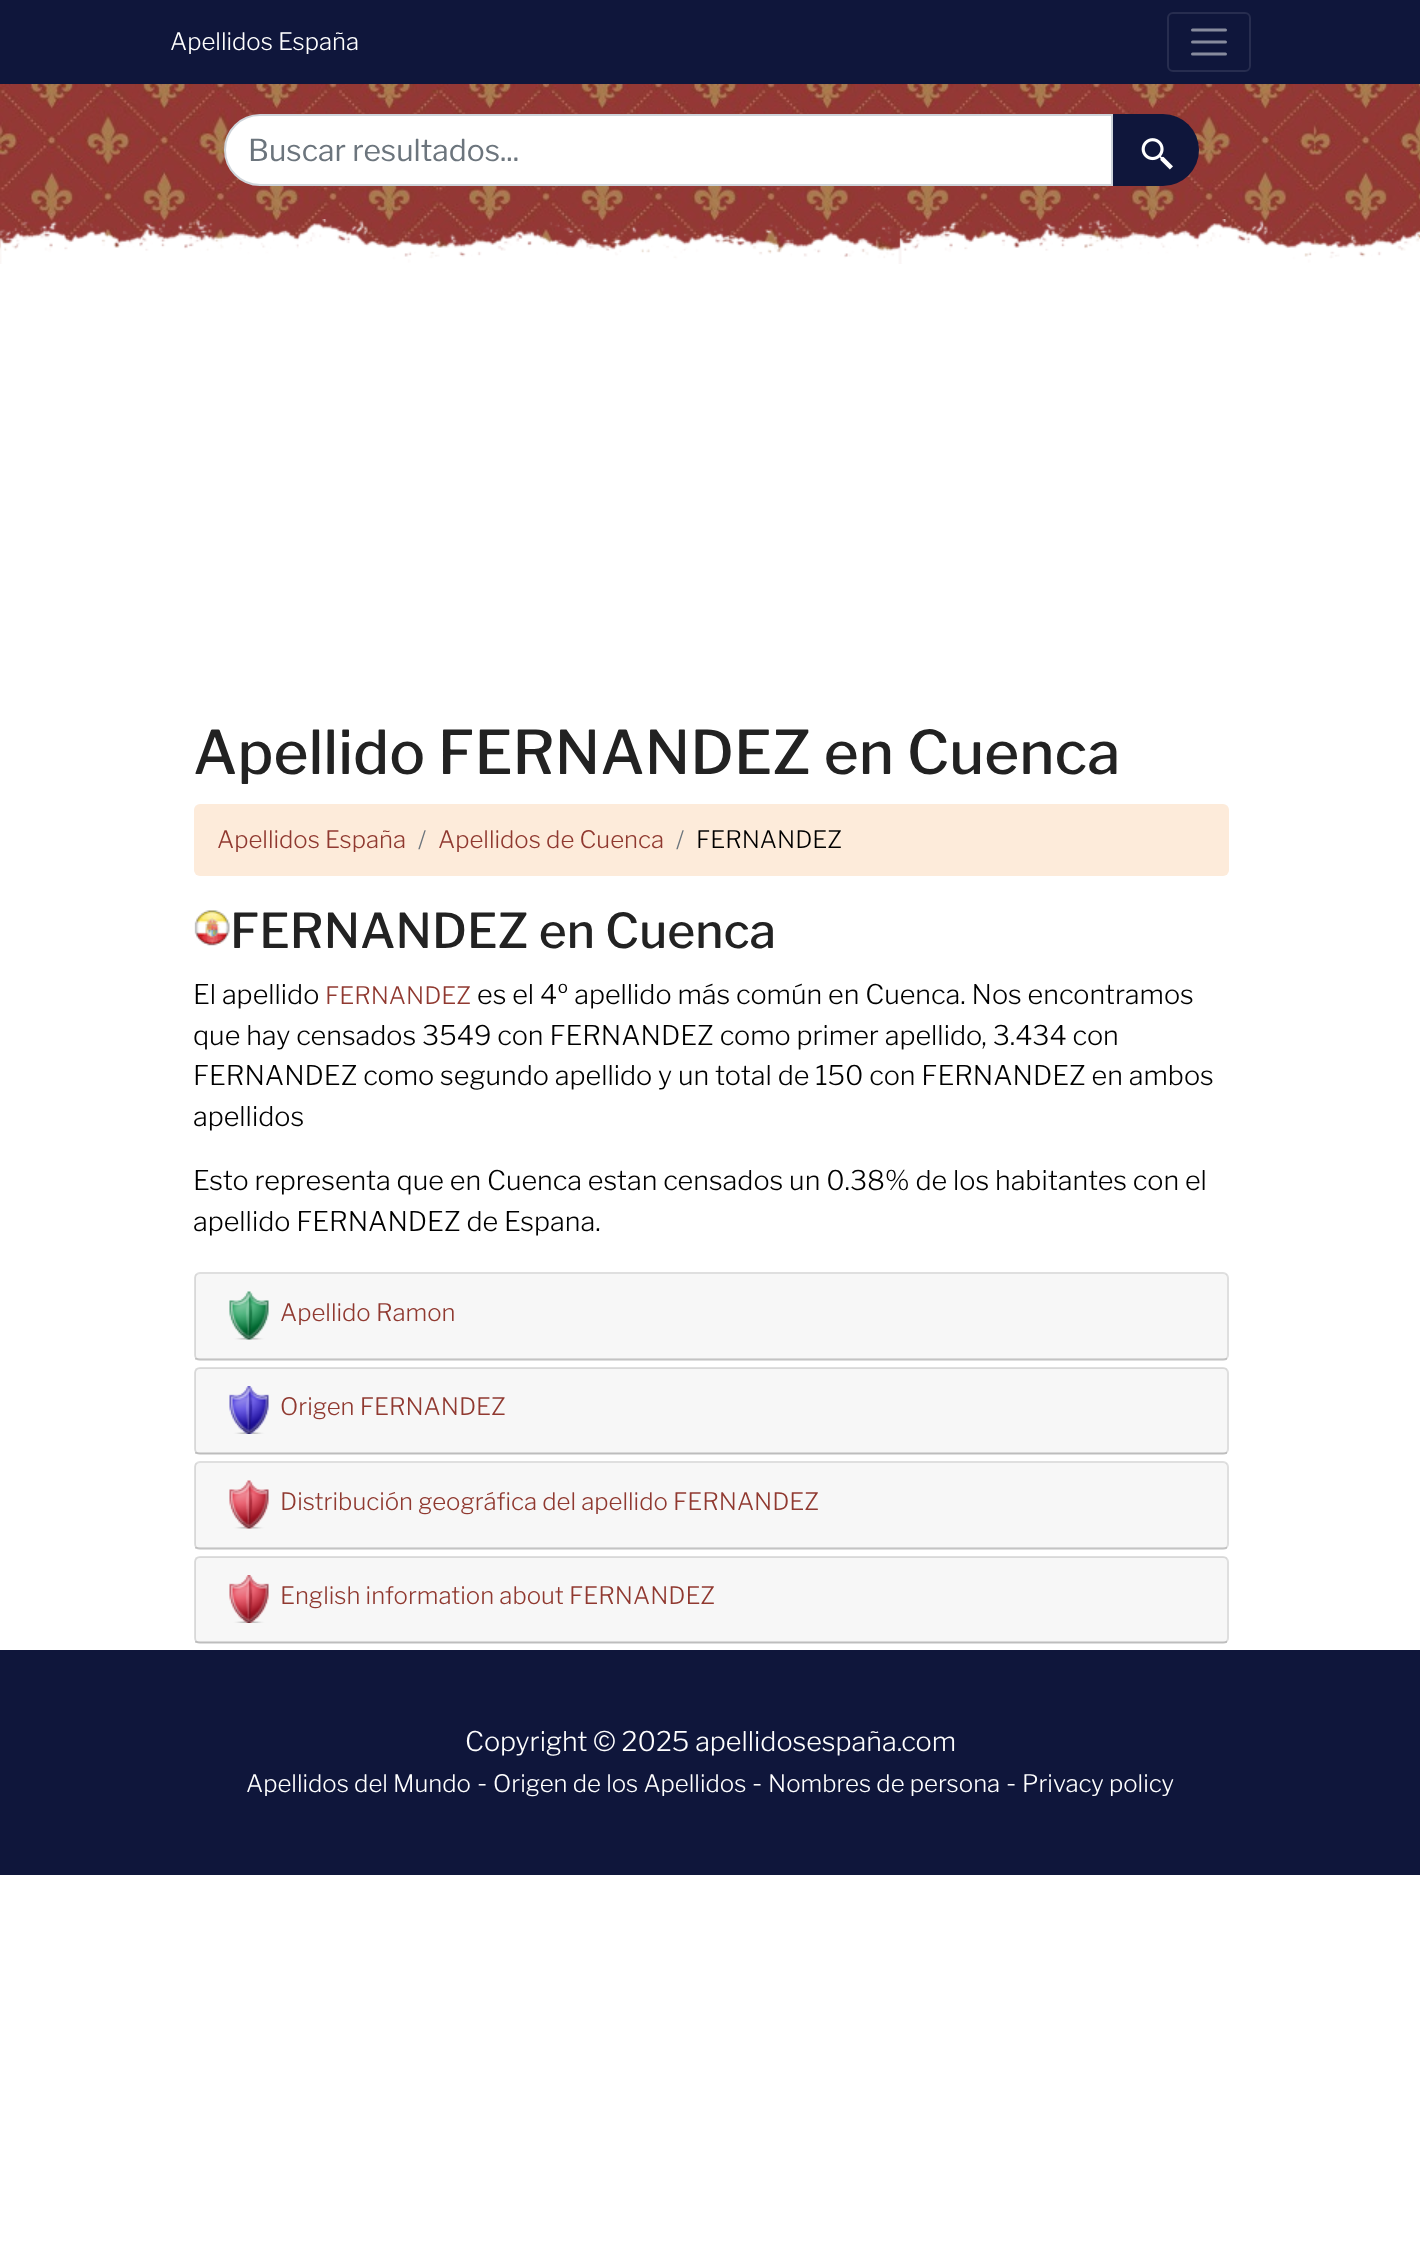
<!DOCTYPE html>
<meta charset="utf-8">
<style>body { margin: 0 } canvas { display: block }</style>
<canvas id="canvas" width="1420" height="2248"></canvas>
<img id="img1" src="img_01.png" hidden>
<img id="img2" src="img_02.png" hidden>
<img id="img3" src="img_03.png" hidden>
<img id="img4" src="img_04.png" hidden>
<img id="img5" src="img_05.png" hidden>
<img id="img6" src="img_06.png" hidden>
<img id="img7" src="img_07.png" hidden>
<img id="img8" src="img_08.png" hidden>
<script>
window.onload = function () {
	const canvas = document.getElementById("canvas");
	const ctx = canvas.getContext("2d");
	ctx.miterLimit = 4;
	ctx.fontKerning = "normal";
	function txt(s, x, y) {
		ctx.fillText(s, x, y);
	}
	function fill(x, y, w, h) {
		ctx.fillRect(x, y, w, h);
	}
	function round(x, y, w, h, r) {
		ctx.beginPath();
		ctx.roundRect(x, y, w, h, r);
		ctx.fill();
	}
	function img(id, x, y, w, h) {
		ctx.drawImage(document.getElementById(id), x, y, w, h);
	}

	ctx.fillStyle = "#FFFFFF";
	fill(0, 0, 1420, 2248);
	ctx.fillStyle = "#0F163B";
	fill(0, 0, 1420, 84);
	ctx.beginPath();
	ctx.roundRect(1168, 13, 82, 58, 5);
	ctx.strokeStyle = "#272D4F";
	ctx.lineWidth = 2;
	ctx.stroke();
	ctx.beginPath();
	ctx.moveTo(1192.5, 30);
	ctx.lineTo(1225.5, 30);
	ctx.moveTo(1192.5, 42);
	ctx.lineTo(1225.5, 42);
	ctx.moveTo(1192.5, 54);
	ctx.lineTo(1225.5, 54);
	ctx.strokeStyle = "#878B9D";
	ctx.lineWidth = 3;
	ctx.lineCap = "round";
	ctx.stroke();
	img("img1", 0, 84, 1420, 180);
	ctx.fillStyle = "#FFFFFF";
	ctx.beginPath();
	ctx.roundRect(225, 115, 887, 70, [35, 0, 0, 35]);
	ctx.fill();
	ctx.strokeStyle = "#CED4DA";
	ctx.lineWidth = 2;
	ctx.stroke();
	ctx.fillStyle = "#0F163B";
	ctx.beginPath();
	ctx.roundRect(1113, 114, 86, 72, [0, 36, 36, 0]);
	ctx.fill();
	img("img2", 1141, 138, 32, 32);
	img("img3", 0, 219, 1420, 45);
	ctx.fillStyle = "#FDEBDA";
	round(194, 804, 1035, 72, 6);
	img("img4", 194, 910, 36, 36);
	ctx.beginPath();
	ctx.roundRect(195, 1273, 1033, 87, 5);
	ctx.strokeStyle = "#DFDFDF";
	ctx.stroke();
	ctx.fillStyle = "rgba(0, 0, 0, 0.03)";
	fill(195, 1274, 1032, 85);
	ctx.fillStyle = "rgba(0, 0, 0, 0.12)";
	fill(195, 1358, 1032, 2);
	img("img5", 229, 1291, 40, 49);
	ctx.beginPath();
	ctx.roundRect(195, 1368, 1033, 86, 5);
	ctx.stroke();
	ctx.fillStyle = "rgba(0, 0, 0, 0.03)";
	fill(195, 1368, 1032, 86);
	ctx.fillStyle = "rgba(0, 0, 0, 0.12)";
	fill(195, 1452, 1032, 2);
	img("img6", 229, 1386, 40, 48);
	ctx.beginPath();
	ctx.roundRect(195, 1462, 1033, 87, 5);
	ctx.stroke();
	ctx.fillStyle = "rgba(0, 0, 0, 0.03)";
	fill(195, 1463, 1032, 85);
	ctx.fillStyle = "rgba(0, 0, 0, 0.12)";
	fill(195, 1547, 1032, 2);
	img("img7", 229, 1480, 40, 49);
	ctx.beginPath();
	ctx.roundRect(195, 1557, 1033, 86, 5);
	ctx.stroke();
	ctx.fillStyle = "rgba(0, 0, 0, 0.03)";
	fill(195, 1557, 1032, 86);
	ctx.fillStyle = "rgba(0, 0, 0, 0.12)";
	fill(195, 1641, 1032, 2);
	img("img8", 229, 1575, 40, 48);
	ctx.fillStyle = "#0F163B";
	fill(0, 1650, 1420, 225);
	ctx.font = "300 24px Libre Franklin";
	ctx.fillStyle = "#FFFFFF";
	txt("Apellidos España", 170, 50);
	ctx.font = "30px Libre Franklin";
	ctx.fillStyle = "#6C757D";
	txt("Buscar resultados...", 248, 161);
	ctx.font = "500 60px Libre Franklin";
	ctx.fillStyle = "#222222";
	txt("Apellido FERNANDEZ en Cuenca", 193, 774);
	ctx.font = "300 24px Libre Franklin";
	ctx.fillStyle = "#903930";
	txt("Apellidos España", 217, 848);
	ctx.fillStyle = "#6C757D";
	txt("/", 418, 848);
	ctx.fillStyle = "#903930";
	txt("Apellidos de Cuenca", 438, 848);
	ctx.fillStyle = "#6C757D";
	txt("/", 676, 848);
	ctx.fillStyle = "#000000";
	txt("FERNANDEZ", 696, 848);
	ctx.font = "500 48px Libre Franklin";
	ctx.fillStyle = "#222222";
	txt("FERNANDEZ en Cuenca", 230, 948);
	ctx.font = "300 27px Libre Franklin";
	ctx.fillStyle = "#000000";
	txt("El apellido", 193, 1004);
	ctx.font = "300 24px Libre Franklin";
	ctx.fillStyle = "#903930";
	txt("FERNANDEZ", 325, 1004);
	ctx.font = "300 27px Libre Franklin";
	ctx.fillStyle = "#000000";
	txt("es el 4º apellido más común en Cuenca. Nos encontramos", 477, 1004);
	txt("que hay censados 3549 con FERNANDEZ como primer apellido, 3.434 con", 193, 1045);
	txt("FERNANDEZ como segundo apellido y un total de 150 con FERNANDEZ en ambos", 193, 1085);
	txt("apellidos", 193, 1126);
	txt("Esto representa que en Cuenca estan censados un 0.38% de los habitantes con el", 193, 1190);
	txt("apellido FERNANDEZ de Espana.", 193, 1231);
	ctx.font = "300 24px Libre Franklin";
	ctx.fillStyle = "#903930";
	txt("Apellido Ramon", 280, 1321);
	txt("Origen FERNANDEZ", 280, 1415);
	txt("Distribución geográfica del apellido FERNANDEZ", 280, 1510);
	txt("English information about FERNANDEZ", 280, 1604);
	ctx.font = "300 27px Libre Franklin";
	ctx.fillStyle = "#FFFFFF";
	txt("Copyright © 2025 apellidosespaña.com", 465, 1751);
	ctx.font = "300 24px Libre Franklin";
	txt("Apellidos del Mundo", 246, 1792);
	ctx.font = "300 27px Libre Franklin";
	txt("-", 477, 1792);
	ctx.font = "300 24px Libre Franklin";
	txt("Origen de los Apellidos", 493, 1792);
	ctx.font = "300 27px Libre Franklin";
	txt("-", 752, 1792);
	ctx.font = "300 24px Libre Franklin";
	txt("Nombres de persona", 768, 1792);
	ctx.font = "300 27px Libre Franklin";
	txt("-", 1006, 1792);
	ctx.font = "300 24px Libre Franklin";
	txt("Privacy policy", 1022, 1792);
};
</script>
